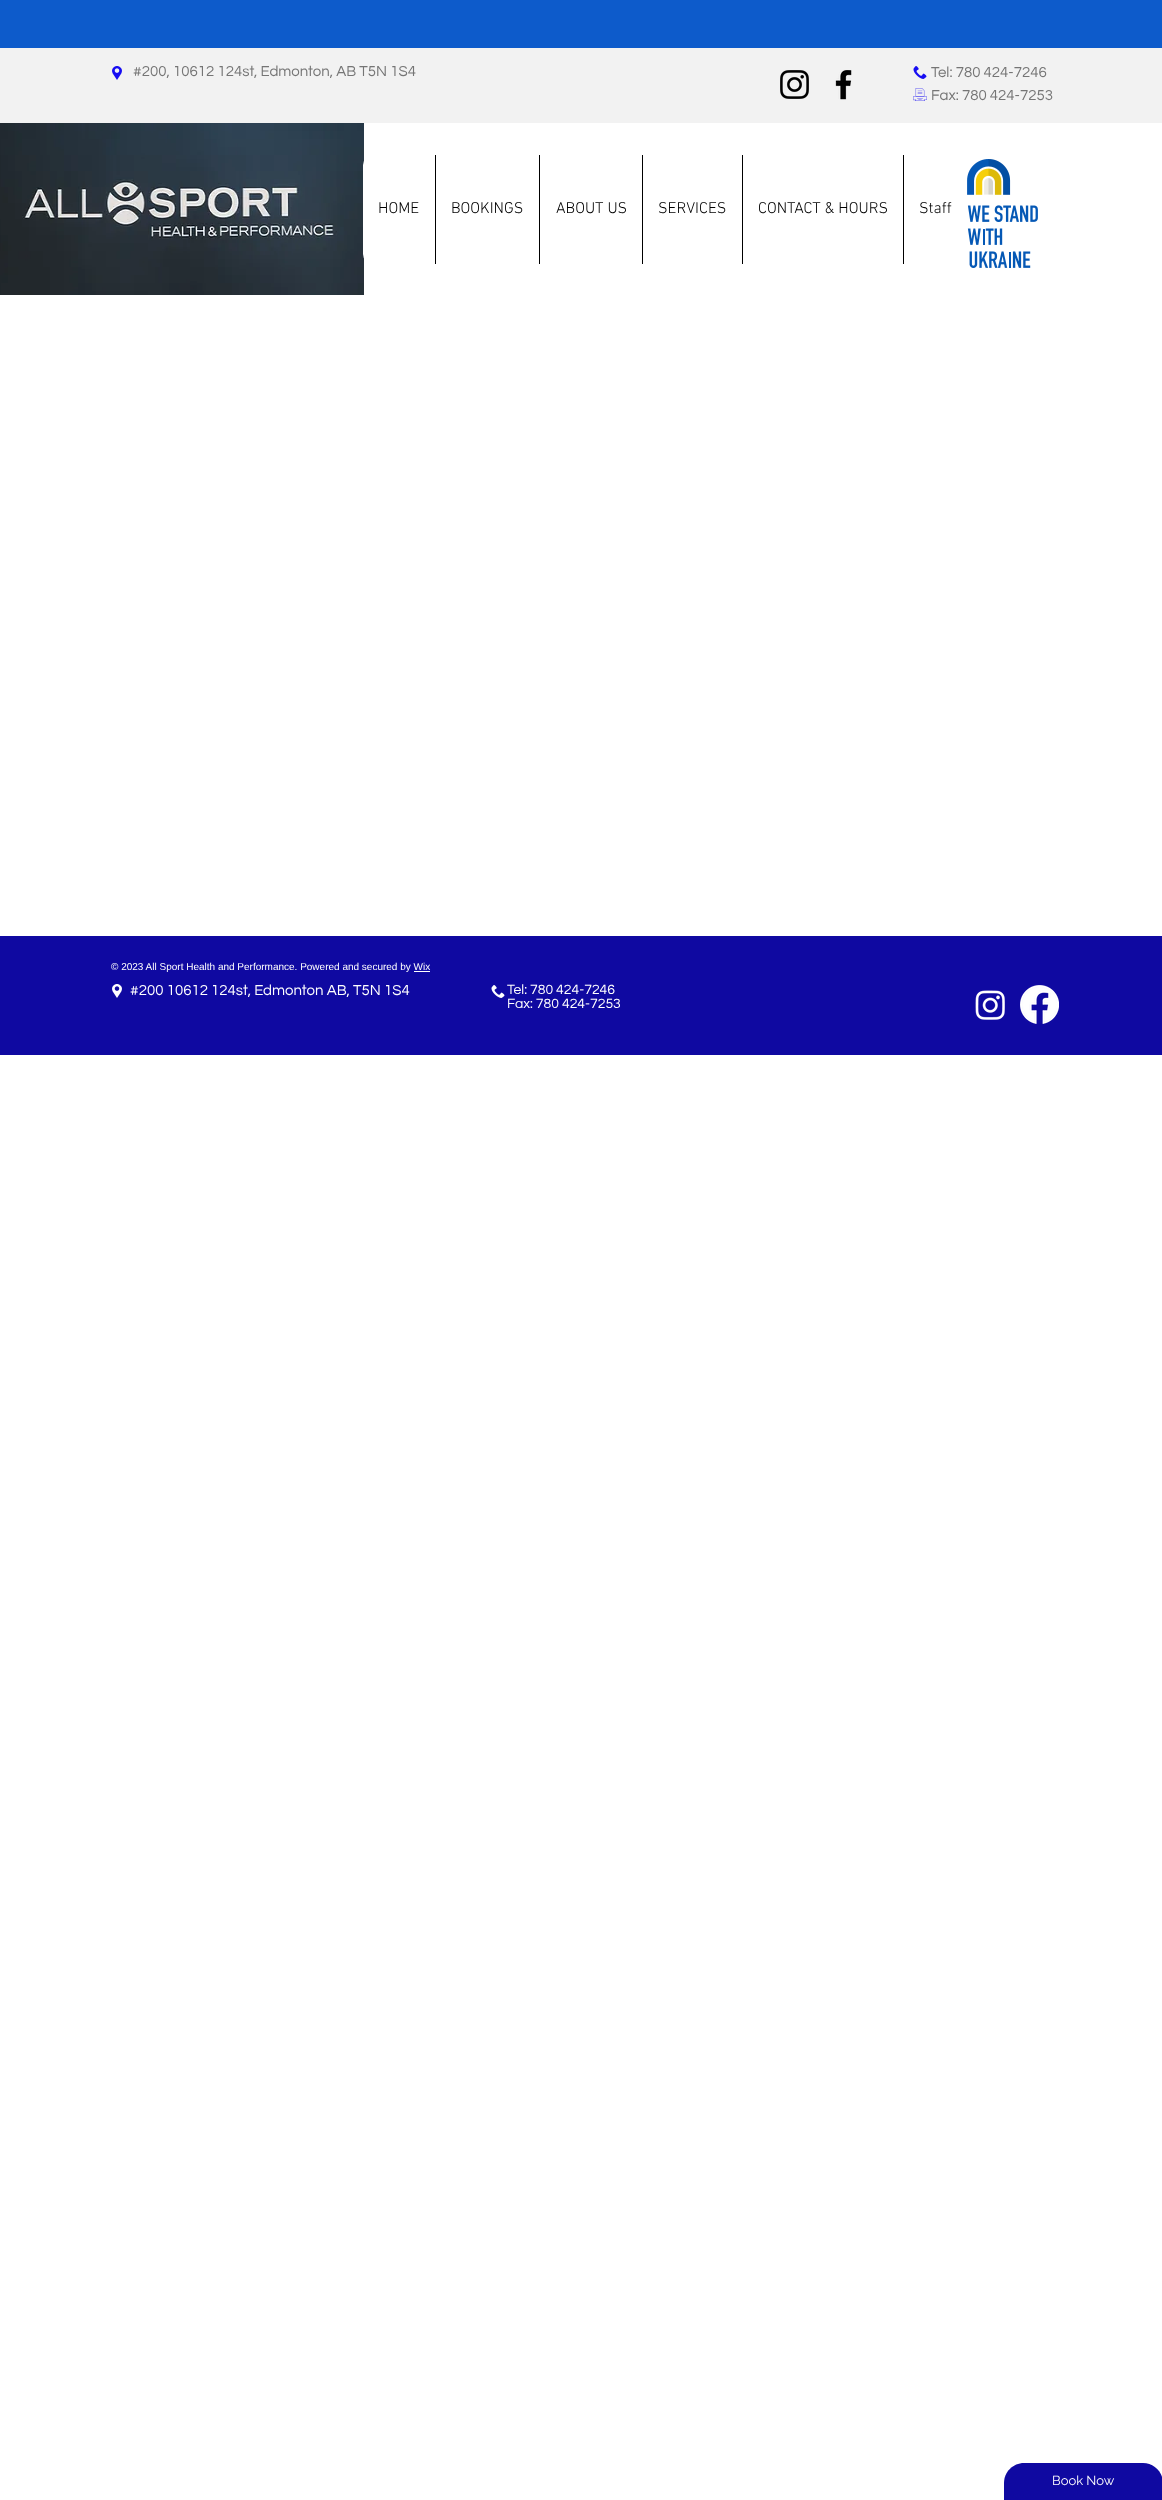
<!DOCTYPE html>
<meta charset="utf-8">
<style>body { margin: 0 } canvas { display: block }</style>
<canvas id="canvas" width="1162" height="2500"></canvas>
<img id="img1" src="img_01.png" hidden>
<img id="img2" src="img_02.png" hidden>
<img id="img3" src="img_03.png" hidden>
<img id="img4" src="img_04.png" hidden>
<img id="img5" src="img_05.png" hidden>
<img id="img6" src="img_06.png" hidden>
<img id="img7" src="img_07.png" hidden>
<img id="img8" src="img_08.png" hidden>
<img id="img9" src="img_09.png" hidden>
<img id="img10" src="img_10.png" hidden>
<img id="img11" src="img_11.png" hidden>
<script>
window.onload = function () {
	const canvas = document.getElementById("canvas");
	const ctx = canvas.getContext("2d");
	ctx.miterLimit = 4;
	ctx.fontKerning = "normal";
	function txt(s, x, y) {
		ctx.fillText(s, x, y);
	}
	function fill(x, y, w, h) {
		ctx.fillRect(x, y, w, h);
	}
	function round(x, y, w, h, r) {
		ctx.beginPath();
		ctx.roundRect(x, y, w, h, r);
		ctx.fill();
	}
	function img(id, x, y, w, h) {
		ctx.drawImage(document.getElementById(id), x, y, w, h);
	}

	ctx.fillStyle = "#FFFFFF";
	fill(0, 0, 1162, 2500);
	ctx.fillStyle = "#0D5BCB";
	fill(0, 0, 1162, 48);
	ctx.fillStyle = "#F2F2F2";
	fill(0, 48, 1162, 75);
	img("img1", 112, 66, 10, 14);
	img("img2", 780, 70, 29, 29);
	img("img3", 835, 70, 17, 30);
	img("img4", 913, 66, 14, 13);
	img("img5", 913, 88, 14, 13);
	img("img6", 0, 123, 364, 172);
	ctx.fillStyle = "#FFFFFF";
	round(363, 155, 604, 109, 10);
	ctx.fillStyle = "#000000";
	fill(435, 155, 1, 109);
	fill(539, 155, 1, 109);
	fill(642, 155, 1, 109);
	fill(742, 155, 1, 109);
	fill(903, 155, 1, 109);
	img("img7", 967, 159, 71, 109);
	ctx.fillStyle = "#0F09A1";
	fill(0, 936, 1162, 119);
	ctx.fillStyle = "#FFFFFF";
	fill(414, 971, 16, 1);
	img("img8", 112, 984, 10, 14);
	img("img9", 491, 985, 14, 13);
	img("img10", 975, 990, 30, 30);
	img("img11", 1020, 985, 39, 39);
	ctx.fillStyle = "#0F09A1";
	ctx.beginPath();
	ctx.moveTo(1024, 2463);
	ctx.lineTo(1143, 2463);
	ctx.bezierCurveTo(1154, 2463, 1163, 2472, 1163, 2483);
	ctx.lineTo(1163, 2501);
	ctx.lineTo(1004, 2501);
	ctx.lineTo(1004, 2483);
	ctx.bezierCurveTo(1004, 2472, 1013, 2463, 1024, 2463);
	ctx.closePath();
	ctx.fill();
	ctx.font = "15px Questrial";
	ctx.fillStyle = "#757575";
	txt("#200, 10612 124st, Edmonton, AB T5N 1S4", 133, 76);
	txt("Tel: 780 424-7246", 931, 77);
	txt("Fax: 780 424-7253", 931, 100);
	ctx.font = "300 16px 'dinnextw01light'";
	ctx.fillStyle = "#000000";
	txt("HOME", 378, 213);
	txt("BOOKINGS", 451, 213);
	txt("ABOUT US", 556, 213);
	txt("SERVICES", 658, 213);
	txt("CONTACT & HOURS", 758, 213);
	txt("Staff", 919, 213);
	ctx.font = "10px Liberation Sans";
	ctx.fillStyle = "#FFFFFF";
	txt("© 2023 All Sport Health and Performance. Powered and secured by Wix", 111, 970);
	ctx.font = "15px Questrial";
	txt("#200 10612 124st, Edmonton AB, T5N 1S4", 130, 995);
	ctx.font = "14px Questrial";
	txt("Tel: 780 424-7246", 507, 994);
	txt("Fax: 780 424-7253", 507, 1008);
	ctx.font = "13px Raleway";
	txt("Book Now", 1052, 2485);
};
</script>
